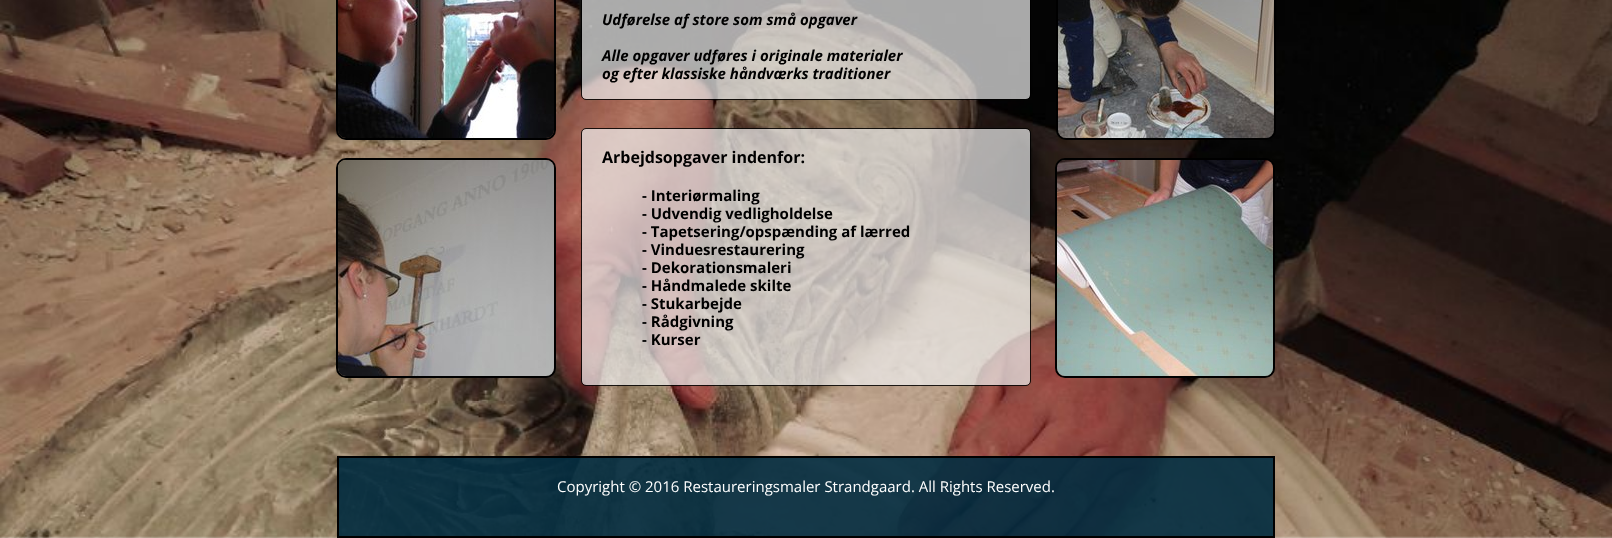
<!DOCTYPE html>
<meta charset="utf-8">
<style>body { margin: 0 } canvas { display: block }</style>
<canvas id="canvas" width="1612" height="538"></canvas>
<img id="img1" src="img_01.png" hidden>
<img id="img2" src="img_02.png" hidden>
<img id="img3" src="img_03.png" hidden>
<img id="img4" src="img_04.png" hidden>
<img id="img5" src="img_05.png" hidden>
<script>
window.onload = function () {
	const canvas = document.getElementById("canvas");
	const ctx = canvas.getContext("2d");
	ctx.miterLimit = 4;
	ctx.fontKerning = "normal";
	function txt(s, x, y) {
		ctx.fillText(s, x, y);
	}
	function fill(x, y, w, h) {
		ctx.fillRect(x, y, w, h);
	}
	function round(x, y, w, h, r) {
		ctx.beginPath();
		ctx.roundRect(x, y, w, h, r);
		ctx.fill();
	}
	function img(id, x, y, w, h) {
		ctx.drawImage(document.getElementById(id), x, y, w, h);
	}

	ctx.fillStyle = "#FFFFFF";
	fill(0, 0, 1612, 538);
	img("img1", 0, 0, 1612, 538);
	ctx.beginPath();
	ctx.roundRect(337, -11, 218, 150, 9);
	ctx.strokeStyle = "#000000";
	ctx.lineWidth = 2;
	ctx.stroke();
	img("img2", 338, 0, 216, 138);
	ctx.beginPath();
	ctx.roundRect(337, 159, 218, 218, 9);
	ctx.stroke();
	img("img3", 338, 160, 216, 216);
	ctx.fillStyle = "rgba(240, 240, 240, 0.7)";
	round(582, -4, 448, 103, 4);
	ctx.beginPath();
	ctx.roundRect(581.5, -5.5, 449, 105, 4.5);
	ctx.strokeStyle = "rgba(0, 0, 0, 0.85)";
	ctx.lineWidth = 1;
	ctx.stroke();
	round(582, 129, 448, 256, 4);
	ctx.beginPath();
	ctx.roundRect(581.5, 128.5, 449, 257, 4.5);
	ctx.stroke();
	ctx.beginPath();
	ctx.roundRect(1057, -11, 218, 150, 9);
	ctx.strokeStyle = "#000000";
	ctx.lineWidth = 2;
	ctx.stroke();
	img("img4", 1058, 0, 216, 138);
	ctx.beginPath();
	ctx.roundRect(1056, 159, 218, 218, 9);
	ctx.stroke();
	img("img5", 1057, 160, 216, 216);
	ctx.fillStyle = "rgba(1, 43, 63, 0.9)";
	ctx.beginPath();
	ctx.rect(338, 457, 936, 80);
	ctx.fill();
	ctx.stroke();
	ctx.font = "italic bold 15px Open Sans";
	ctx.fillStyle = "#000000";
	txt("Udførelse af store som små opgaver", 602, 25);
	txt("Alle opgaver udføres i originale materialer", 602, 61);
	txt("og efter klassiske håndværks traditioner", 602, 79);
	ctx.font = "bold 16px Open Sans";
	txt("Arbejdsopgaver indenfor:", 602, 163);
	ctx.font = "bold 15px Open Sans";
	txt("- Interiørmaling", 642, 201);
	txt("- Udvendig vedligholdelse", 642, 219);
	txt("- Tapetsering/opspænding af lærred", 642, 237);
	txt("- Vinduesrestaurering", 642, 255);
	txt("- Dekorationsmaleri", 642, 273);
	txt("- Håndmalede skilte", 642, 291);
	txt("- Stukarbejde", 642, 309);
	txt("- Rådgivning", 642, 327);
	txt("- Kurser", 642, 345);
	ctx.font = "15px Open Sans";
	ctx.fillStyle = "#FFFFFF";
	txt("Copyright © 2016 Restaureringsmaler Strandgaard. All Rights Reserved.", 557, 492);
};
</script>
